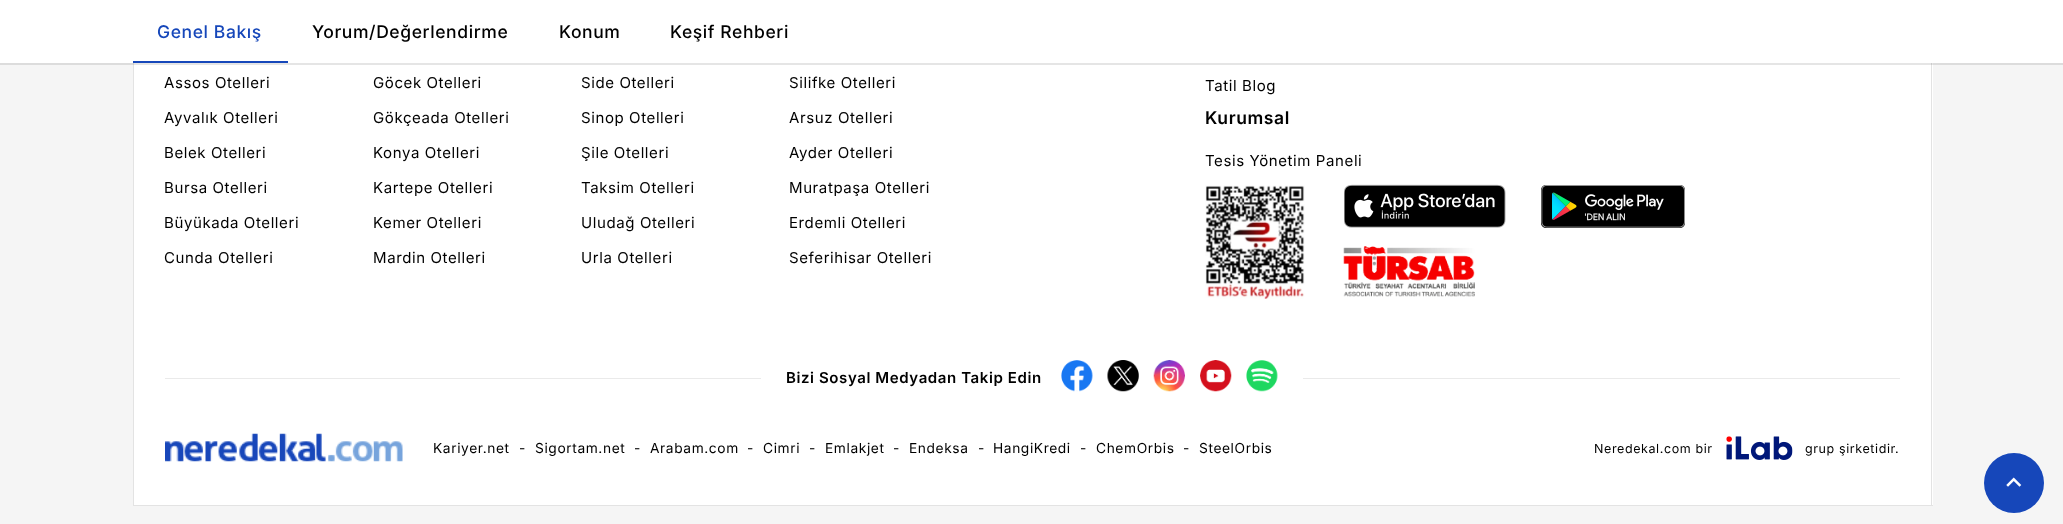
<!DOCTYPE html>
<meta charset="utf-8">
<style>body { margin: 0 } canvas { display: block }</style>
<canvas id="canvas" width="2063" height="524"></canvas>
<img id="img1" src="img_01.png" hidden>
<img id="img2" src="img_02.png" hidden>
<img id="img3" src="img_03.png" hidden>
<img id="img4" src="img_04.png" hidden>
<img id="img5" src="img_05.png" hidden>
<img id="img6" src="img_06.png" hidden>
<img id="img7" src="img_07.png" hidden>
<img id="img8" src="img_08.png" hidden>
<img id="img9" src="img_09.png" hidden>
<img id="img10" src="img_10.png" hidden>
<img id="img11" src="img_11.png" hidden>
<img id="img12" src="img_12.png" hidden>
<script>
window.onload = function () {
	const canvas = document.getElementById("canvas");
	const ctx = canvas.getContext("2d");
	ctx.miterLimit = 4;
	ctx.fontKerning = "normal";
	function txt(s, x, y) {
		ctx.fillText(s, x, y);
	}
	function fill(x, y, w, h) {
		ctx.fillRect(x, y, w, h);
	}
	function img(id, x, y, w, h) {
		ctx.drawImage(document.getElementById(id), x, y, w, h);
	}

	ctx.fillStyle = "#F5F5F5";
	fill(0, 0, 2063, 524);
	ctx.fillStyle = "#FFFFFF";
	fill(134, 63, 1799, 442);
	ctx.fillStyle = "#E3E3E3";
	fill(1931, 63, 1, 443);
	fill(133, 505, 1800, 1);
	fill(133, 63, 1, 443);
	ctx.fillStyle = "rgba(0, 0, 0, 0.1)";
	ctx.filter = "blur(0.5px)";
	ctx.beginPath();
	ctx.rect(0, 3, 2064, 62);
	ctx.fill();
	ctx.filter = "none";
	ctx.fillStyle = "#FFFFFF";
	fill(0, 0, 2063, 63);
	ctx.fillStyle = "#1647BA";
	fill(133, 61, 155, 2);
	ctx.beginPath();
	ctx.arc(2014, 483, 30, 0, Math.PI * 2);
	ctx.fill();
	img("img1", 2006, 477, 16, 10);
	img("img2", 1205, 185, 100, 114);
	img("img3", 1344, 184, 162, 44);
	img("img4", 1541, 185, 144, 43);
	img("img5", 1343, 246, 132, 51);
	ctx.fillStyle = "#EAEAEA";
	fill(165, 378, 596, 1);
	img("img6", 1061, 360, 32, 32);
	img("img7", 1107, 360, 32, 32);
	img("img8", 1153, 360, 32, 32);
	img("img9", 1200, 360, 32, 32);
	img("img10", 1246, 360, 32, 32);
	fill(1303, 378, 597, 1);
	img("img11", 165, 433, 238, 29);
	img("img12", 1726, 436, 67, 24);
	ctx.letterSpacing = "0.6px";
	ctx.font = "500 17.5px Inter";
	ctx.fillStyle = "#1647BA";
	txt("Genel Bakış", 157, 38);
	ctx.fillStyle = "#000000";
	txt("Yorum/Değerlendirme", 312, 38);
	txt("Konum", 559, 38);
	txt("Keşif Rehberi", 670, 38);
	ctx.font = "15px Inter";
	txt("Assos Otelleri", 164, 88);
	txt("Ayvalık Otelleri", 164, 123);
	txt("Belek Otelleri", 164, 158);
	txt("Bursa Otelleri", 164, 193);
	txt("Büyükada Otelleri", 164, 228);
	txt("Cunda Otelleri", 164, 263);
	txt("Göcek Otelleri", 373, 88);
	txt("Gökçeada Otelleri", 373, 123);
	txt("Konya Otelleri", 373, 158);
	txt("Kartepe Otelleri", 373, 193);
	txt("Kemer Otelleri", 373, 228);
	txt("Mardin Otelleri", 373, 263);
	txt("Side Otelleri", 581, 88);
	txt("Sinop Otelleri", 581, 123);
	txt("Şile Otelleri", 581, 158);
	txt("Taksim Otelleri", 581, 193);
	txt("Uludağ Otelleri", 581, 228);
	txt("Urla Otelleri", 581, 263);
	txt("Silifke Otelleri", 789, 88);
	txt("Arsuz Otelleri", 789, 123);
	txt("Ayder Otelleri", 789, 158);
	txt("Muratpaşa Otelleri", 789, 193);
	txt("Erdemli Otelleri", 789, 228);
	txt("Seferihisar Otelleri", 789, 263);
	txt("Tatil Blog", 1205, 91);
	ctx.font = "600 17.5px Inter";
	txt("Kurumsal", 1205, 124);
	ctx.font = "15px Inter";
	txt("Tesis Yönetim Paneli", 1205, 166);
	ctx.font = "600 15px Inter";
	txt("Bizi Sosyal Medyadan Takip Edin", 786, 383);
	ctx.font = "13.75px Inter";
	txt("Kariyer.net", 433, 453);
	txt("-", 519, 453);
	txt("Sigortam.net", 535, 453);
	txt("-", 634, 453);
	txt("Arabam.com", 650, 453);
	txt("-", 747, 453);
	txt("Cimri", 763, 453);
	txt("-", 809, 453);
	txt("Emlakjet", 825, 453);
	txt("-", 893, 453);
	txt("Endeksa", 909, 453);
	txt("-", 978, 453);
	txt("HangiKredi", 993, 453);
	txt("-", 1080, 453);
	txt("ChemOrbis", 1096, 453);
	txt("-", 1183, 453);
	txt("SteelOrbis", 1199, 453);
	ctx.font = "12.5px Inter";
	txt("Neredekal.com bir", 1594, 453);
	txt("grup şirketidir.", 1805, 453);
};
</script>
